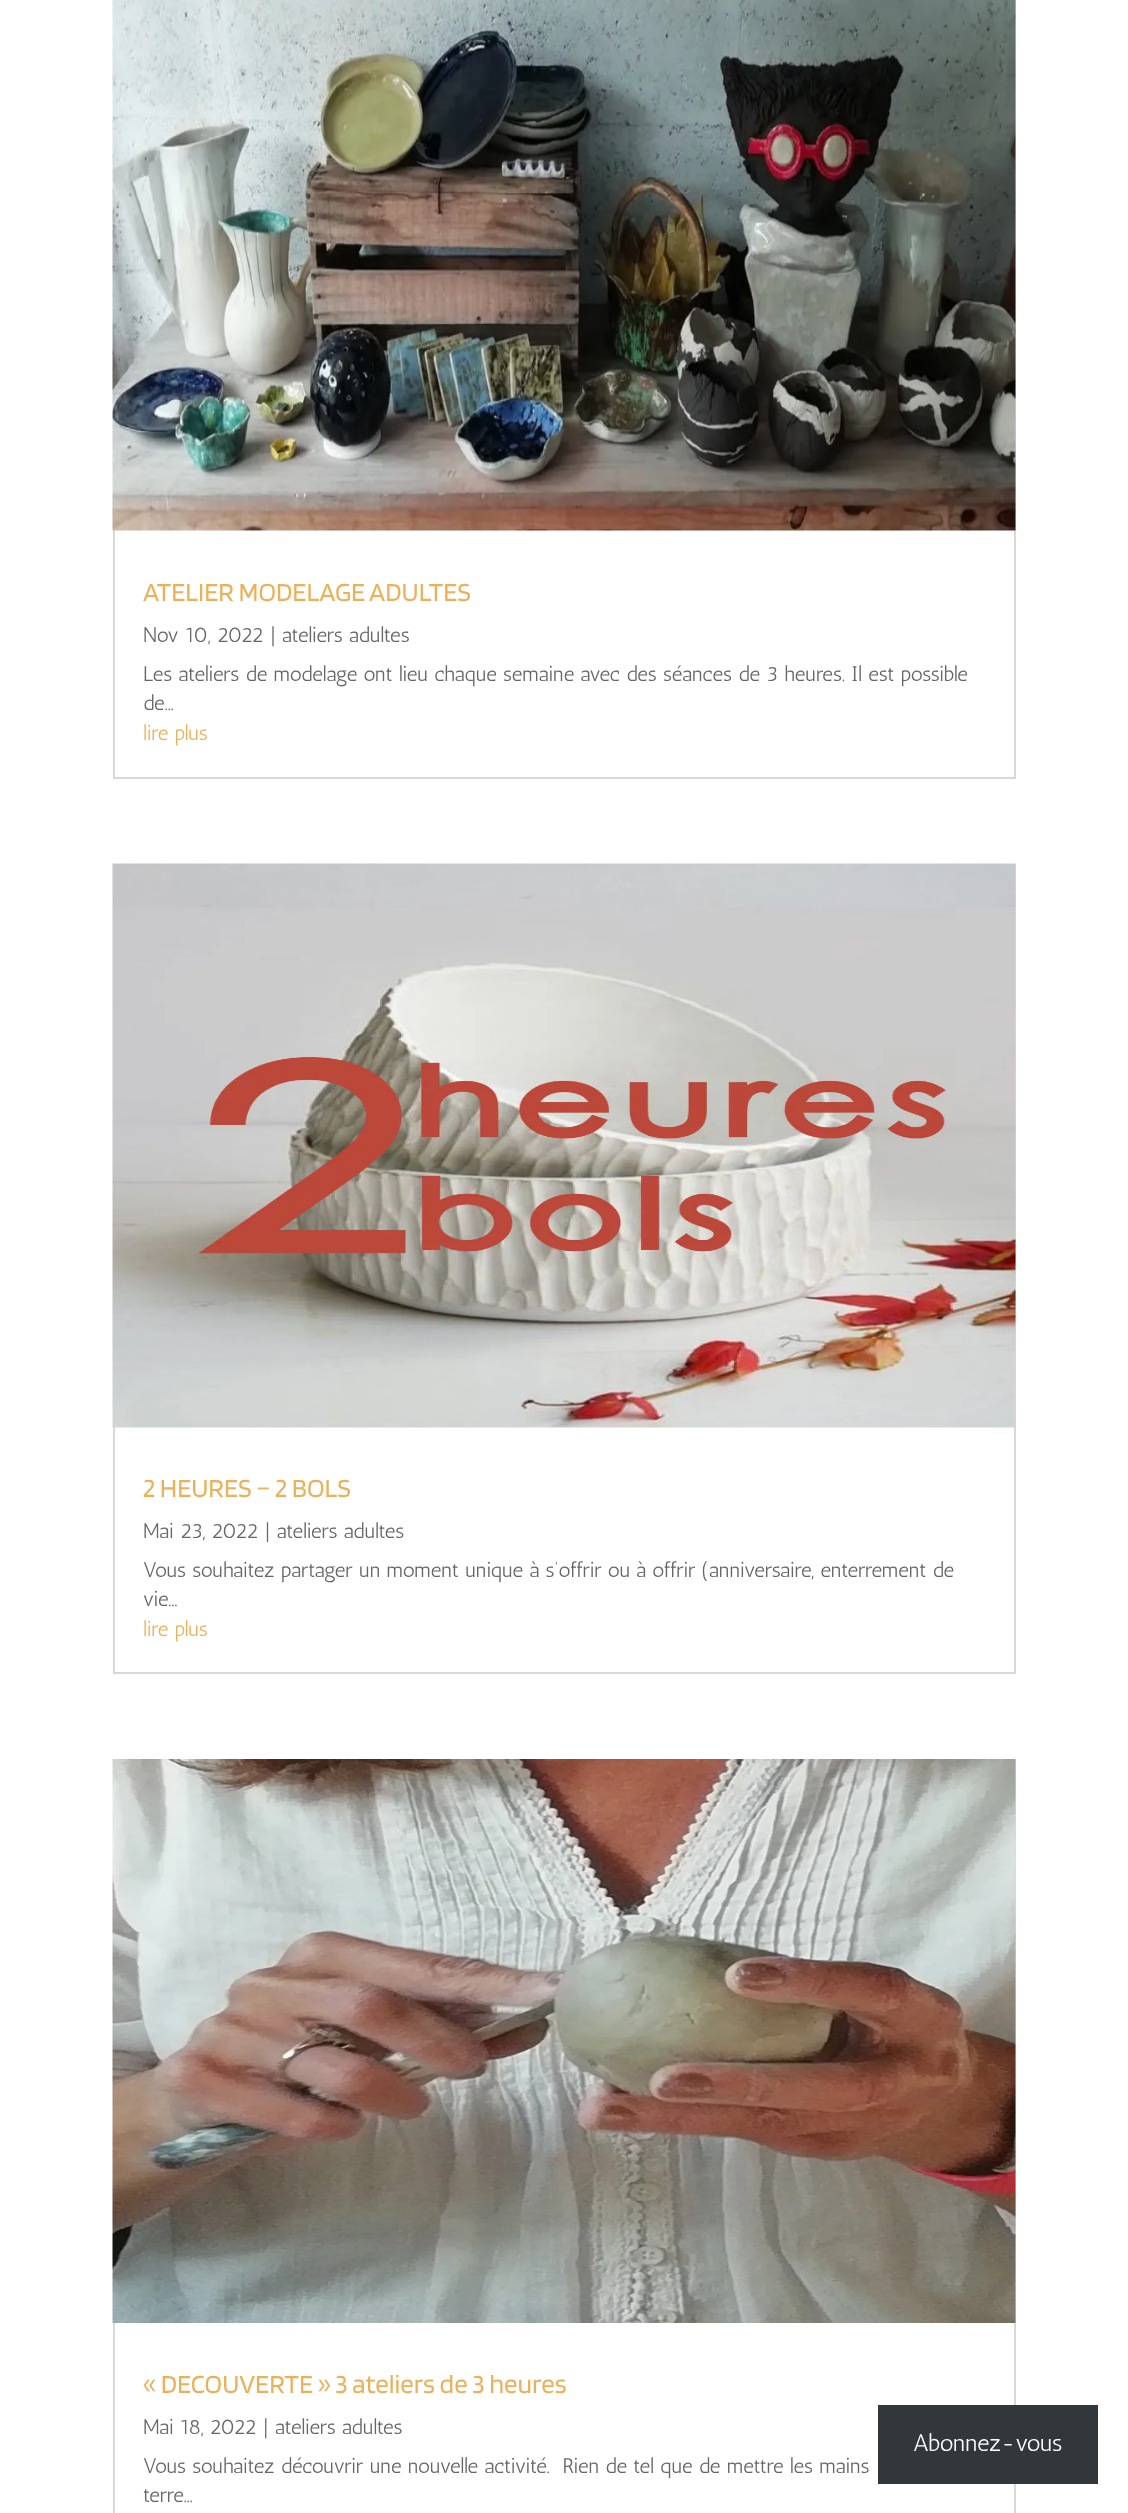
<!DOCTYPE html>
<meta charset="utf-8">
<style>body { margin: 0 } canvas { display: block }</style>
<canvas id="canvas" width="1128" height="2513"></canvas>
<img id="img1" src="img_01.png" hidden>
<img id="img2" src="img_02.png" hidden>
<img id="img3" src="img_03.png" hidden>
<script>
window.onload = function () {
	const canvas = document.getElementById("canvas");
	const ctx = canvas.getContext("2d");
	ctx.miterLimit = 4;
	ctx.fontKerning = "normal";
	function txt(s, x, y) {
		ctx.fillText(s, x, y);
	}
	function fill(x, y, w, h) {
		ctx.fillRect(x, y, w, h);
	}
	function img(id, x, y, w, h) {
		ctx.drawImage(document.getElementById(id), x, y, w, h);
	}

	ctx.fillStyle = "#FFFFFF";
	fill(0, 0, 1128, 2513);
	ctx.strokeStyle = "#D8D8D8";
	ctx.lineWidth = 2;
	ctx.strokeRect(114, -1, 901, 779);
	img("img1", 112, 0, 904, 531);
	ctx.strokeRect(114, 865, 901, 808);
	img("img2", 112, 863, 904, 565);
	ctx.strokeRect(114, 1761, 901, 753);
	img("img3", 112, 1759, 904, 564);
	ctx.fillStyle = "#32373C";
	fill(878, 2405, 220, 79);
	ctx.font = "27px Blinker";
	ctx.fillStyle = "#EDB059";
	txt("ATELIER MODELAGE ADULTES", 143, 601);
	ctx.font = "21px Antic";
	ctx.fillStyle = "#666666";
	txt("Nov 10, 2022 | ateliers adultes", 143, 642);
	txt("Les ateliers de modelage ont lieu chaque semaine avec des séances de 3 heures. Il est possible", 143, 681);
	txt("de...", 143, 710);
	ctx.fillStyle = "#EDB059";
	txt("lire plus", 143, 740);
	ctx.font = "27px Blinker";
	txt("2 HEURES – 2 BOLS", 143, 1497);
	ctx.font = "21px Antic";
	ctx.fillStyle = "#666666";
	txt("Mai 23, 2022 | ateliers adultes", 143, 1538);
	txt("Vous souhaitez partager un moment unique à s’offrir ou à offrir (anniversaire, enterrement de", 143, 1577);
	txt("vie...", 143, 1606);
	ctx.fillStyle = "#EDB059";
	txt("lire plus", 143, 1636);
	ctx.font = "27px Blinker";
	txt("« DECOUVERTE » 3 ateliers de 3 heures", 143, 2393);
	ctx.font = "21px Antic";
	ctx.fillStyle = "#666666";
	txt("Mai 18, 2022 | ateliers adultes", 143, 2434);
	txt("Vous souhaitez découvrir une nouvelle activité.  Rien de tel que de mettre les mains", 143, 2473);
	txt("terre...", 143, 2502);
	ctx.font = "24px Antic";
	ctx.fillStyle = "#FFFFFF";
	txt("Abonnez-vous", 913, 2451);
};
</script>
